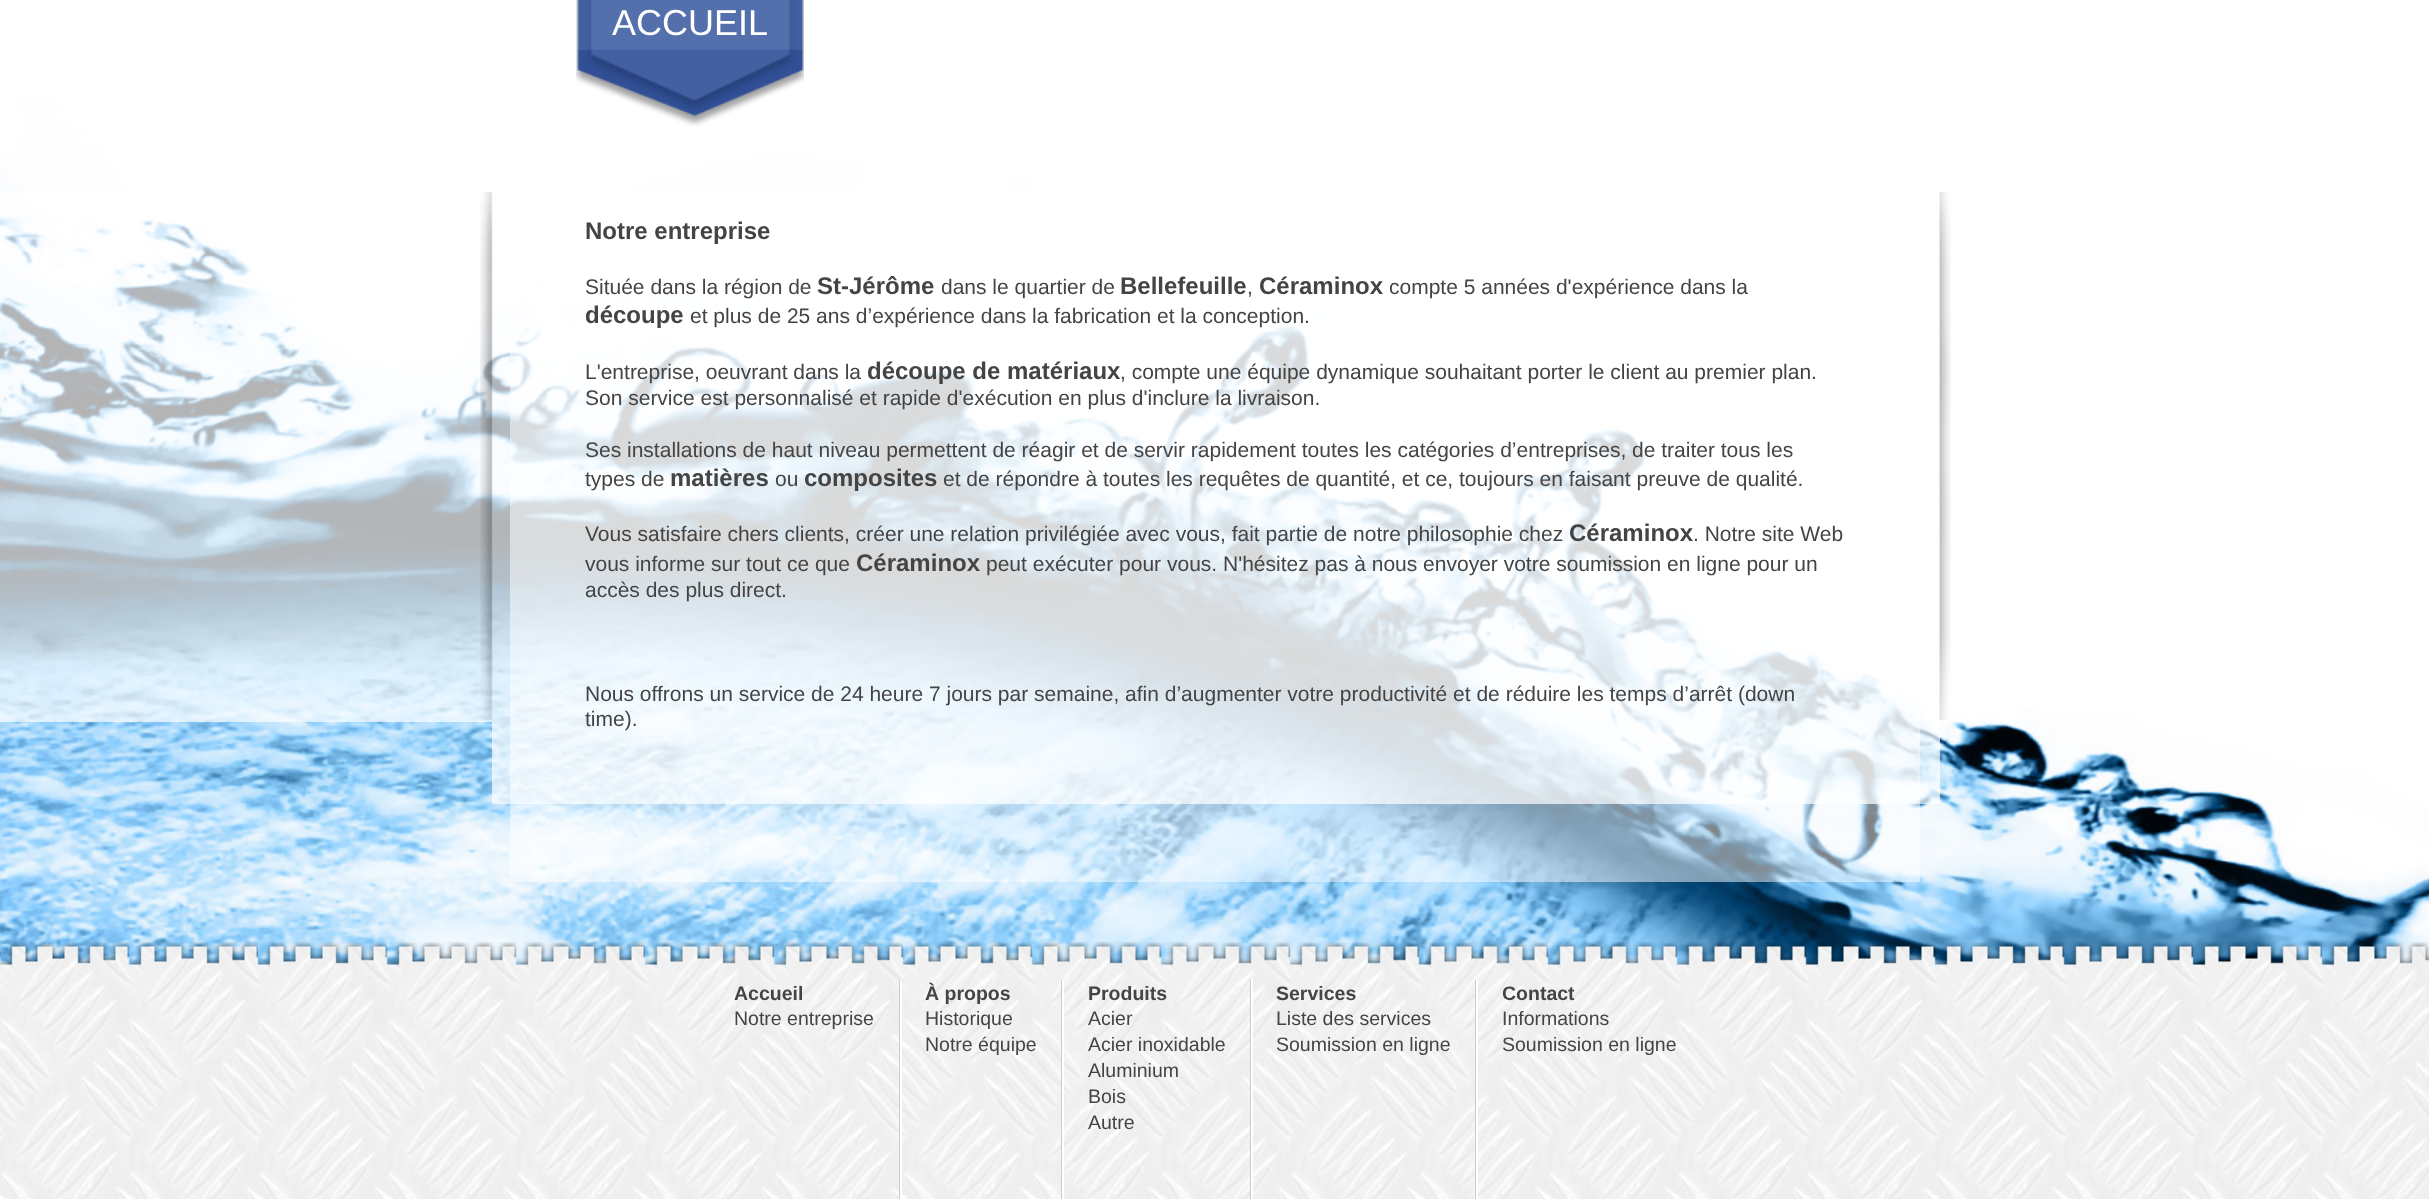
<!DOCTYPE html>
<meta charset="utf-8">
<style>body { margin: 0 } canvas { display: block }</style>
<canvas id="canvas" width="2429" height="1199"></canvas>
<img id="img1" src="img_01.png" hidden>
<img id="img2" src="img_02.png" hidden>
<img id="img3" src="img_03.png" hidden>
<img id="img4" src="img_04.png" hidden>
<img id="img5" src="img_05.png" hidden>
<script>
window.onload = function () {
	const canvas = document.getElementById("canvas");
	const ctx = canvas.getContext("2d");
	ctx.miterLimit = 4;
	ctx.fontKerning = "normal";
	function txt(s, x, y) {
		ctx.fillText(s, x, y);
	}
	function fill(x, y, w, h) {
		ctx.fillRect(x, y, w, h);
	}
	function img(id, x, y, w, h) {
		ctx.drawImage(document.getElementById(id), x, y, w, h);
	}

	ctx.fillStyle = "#FFFFFF";
	fill(0, 0, 2429, 1199);
	img("img1", 0, 0, 2429, 965);
	ctx.fillStyle = "rgba(255, 255, 255, 0.7)";
	fill(0, 192, 2017, 530);
	fill(492, 722, 1448, 82);
	ctx.fillStyle = "rgba(255, 255, 255, 0.5)";
	fill(510, 325, 1410, 557);
	img("img2", 576, 0, 228, 126);
	img("img3", 480, 192, 13, 528);
	img("img4", 1939, 192, 12, 528);
	img("img5", 0, 942, 2429, 257);
	ctx.fillStyle = "#CCCCCC";
	fill(899, 980, 1, 219);
	fill(1061, 980, 1, 219);
	ctx.fillStyle = "#FFFFFF";
	fill(900, 980, 2, 219);
	ctx.fillStyle = "#CCCCCC";
	fill(1250, 980, 1, 219);
	ctx.fillStyle = "#FFFFFF";
	fill(1062, 980, 2, 219);
	ctx.fillStyle = "#CCCCCC";
	fill(1475, 980, 1, 219);
	ctx.fillStyle = "#FFFFFF";
	fill(1251, 980, 2, 219);
	fill(1476, 980, 2, 219);
	ctx.font = "36px Liberation Sans";
	txt("ACCUEIL", 612, 35);
	ctx.font = "bold 24px Liberation Sans";
	ctx.fillStyle = "#444444";
	txt("Notre entreprise", 585, 239);
	ctx.font = "21px Liberation Sans";
	txt("Située dans la région de", 585, 294);
	ctx.font = "bold 24px Liberation Sans";
	txt("St-Jérôme", 817, 294);
	ctx.font = "21px Liberation Sans";
	txt("dans le quartier de", 941, 294);
	ctx.font = "bold 24px Liberation Sans";
	txt("Bellefeuille", 1120, 294);
	ctx.font = "21px Liberation Sans";
	txt(",", 1247, 294);
	ctx.font = "bold 24px Liberation Sans";
	txt("Céraminox", 1259, 294);
	ctx.font = "21px Liberation Sans";
	txt("compte 5 années d'expérience dans la", 1389, 294);
	ctx.font = "bold 24px Liberation Sans";
	txt("découpe", 585, 323);
	ctx.font = "21px Liberation Sans";
	txt("et plus de 25 ans d’expérience dans la fabrication et la conception.", 690, 323);
	txt("L'entreprise, oeuvrant dans la", 585, 379);
	ctx.font = "bold 24px Liberation Sans";
	txt("découpe de matériaux", 867, 379);
	ctx.font = "21px Liberation Sans";
	txt(", compte une équipe dynamique souhaitant porter le client au premier plan.", 1120, 379);
	txt("Son service est personnalisé et rapide d'exécution en plus d'inclure la livraison.", 585, 405);
	txt("Ses installations de haut niveau permettent de réagir et de servir rapidement toutes les catégories d’entreprises, de traiter tous les", 585, 457);
	txt("types de", 585, 486);
	ctx.font = "bold 24px Liberation Sans";
	txt("matières", 670, 486);
	ctx.font = "21px Liberation Sans";
	txt("ou", 775, 486);
	ctx.font = "bold 24px Liberation Sans";
	txt("composites", 804, 486);
	ctx.font = "21px Liberation Sans";
	txt("et de répondre à toutes les requêtes de quantité, et ce, toujours en faisant preuve de qualité.", 943, 486);
	txt("Vous satisfaire chers clients, créer une relation privilégiée avec vous, fait partie de notre philosophie chez", 585, 541);
	ctx.font = "bold 24px Liberation Sans";
	txt("Céraminox", 1569, 541);
	ctx.font = "21px Liberation Sans";
	txt(". Notre site Web", 1693, 541);
	txt("vous informe sur tout ce que", 585, 571);
	ctx.font = "bold 24px Liberation Sans";
	txt("Céraminox", 856, 571);
	ctx.font = "21px Liberation Sans";
	txt("peut exécuter pour vous. N'hésitez pas à nous envoyer votre soumission en ligne pour un", 986, 571);
	txt("accès des plus direct.", 585, 597);
	txt("Nous offrons un service de 24 heure 7 jours par semaine, afin d’augmenter votre productivité et de réduire les temps d’arrêt (down", 585, 701);
	txt("time).", 585, 726);
	ctx.font = "bold 19.5px Liberation Sans";
	txt("Accueil", 734, 1000);
	ctx.font = "19.5px Liberation Sans";
	txt("Notre entreprise", 734, 1025);
	ctx.font = "bold 19.5px Liberation Sans";
	txt("À propos", 925, 1000);
	ctx.font = "19.5px Liberation Sans";
	txt("Historique", 925, 1025);
	txt("Notre équipe", 925, 1051);
	ctx.font = "bold 19.5px Liberation Sans";
	txt("Produits", 1088, 1000);
	ctx.font = "19.5px Liberation Sans";
	txt("Acier", 1088, 1025);
	txt("Acier inoxidable", 1088, 1051);
	txt("Aluminium", 1088, 1077);
	txt("Bois", 1088, 1103);
	txt("Autre", 1088, 1129);
	ctx.font = "bold 19.5px Liberation Sans";
	txt("Services", 1276, 1000);
	ctx.font = "19.5px Liberation Sans";
	txt("Liste des services", 1276, 1025);
	txt("Soumission en ligne", 1276, 1051);
	ctx.font = "bold 19.5px Liberation Sans";
	txt("Contact", 1502, 1000);
	ctx.font = "19.5px Liberation Sans";
	txt("Informations", 1502, 1025);
	txt("Soumission en ligne", 1502, 1051);
};
</script>
